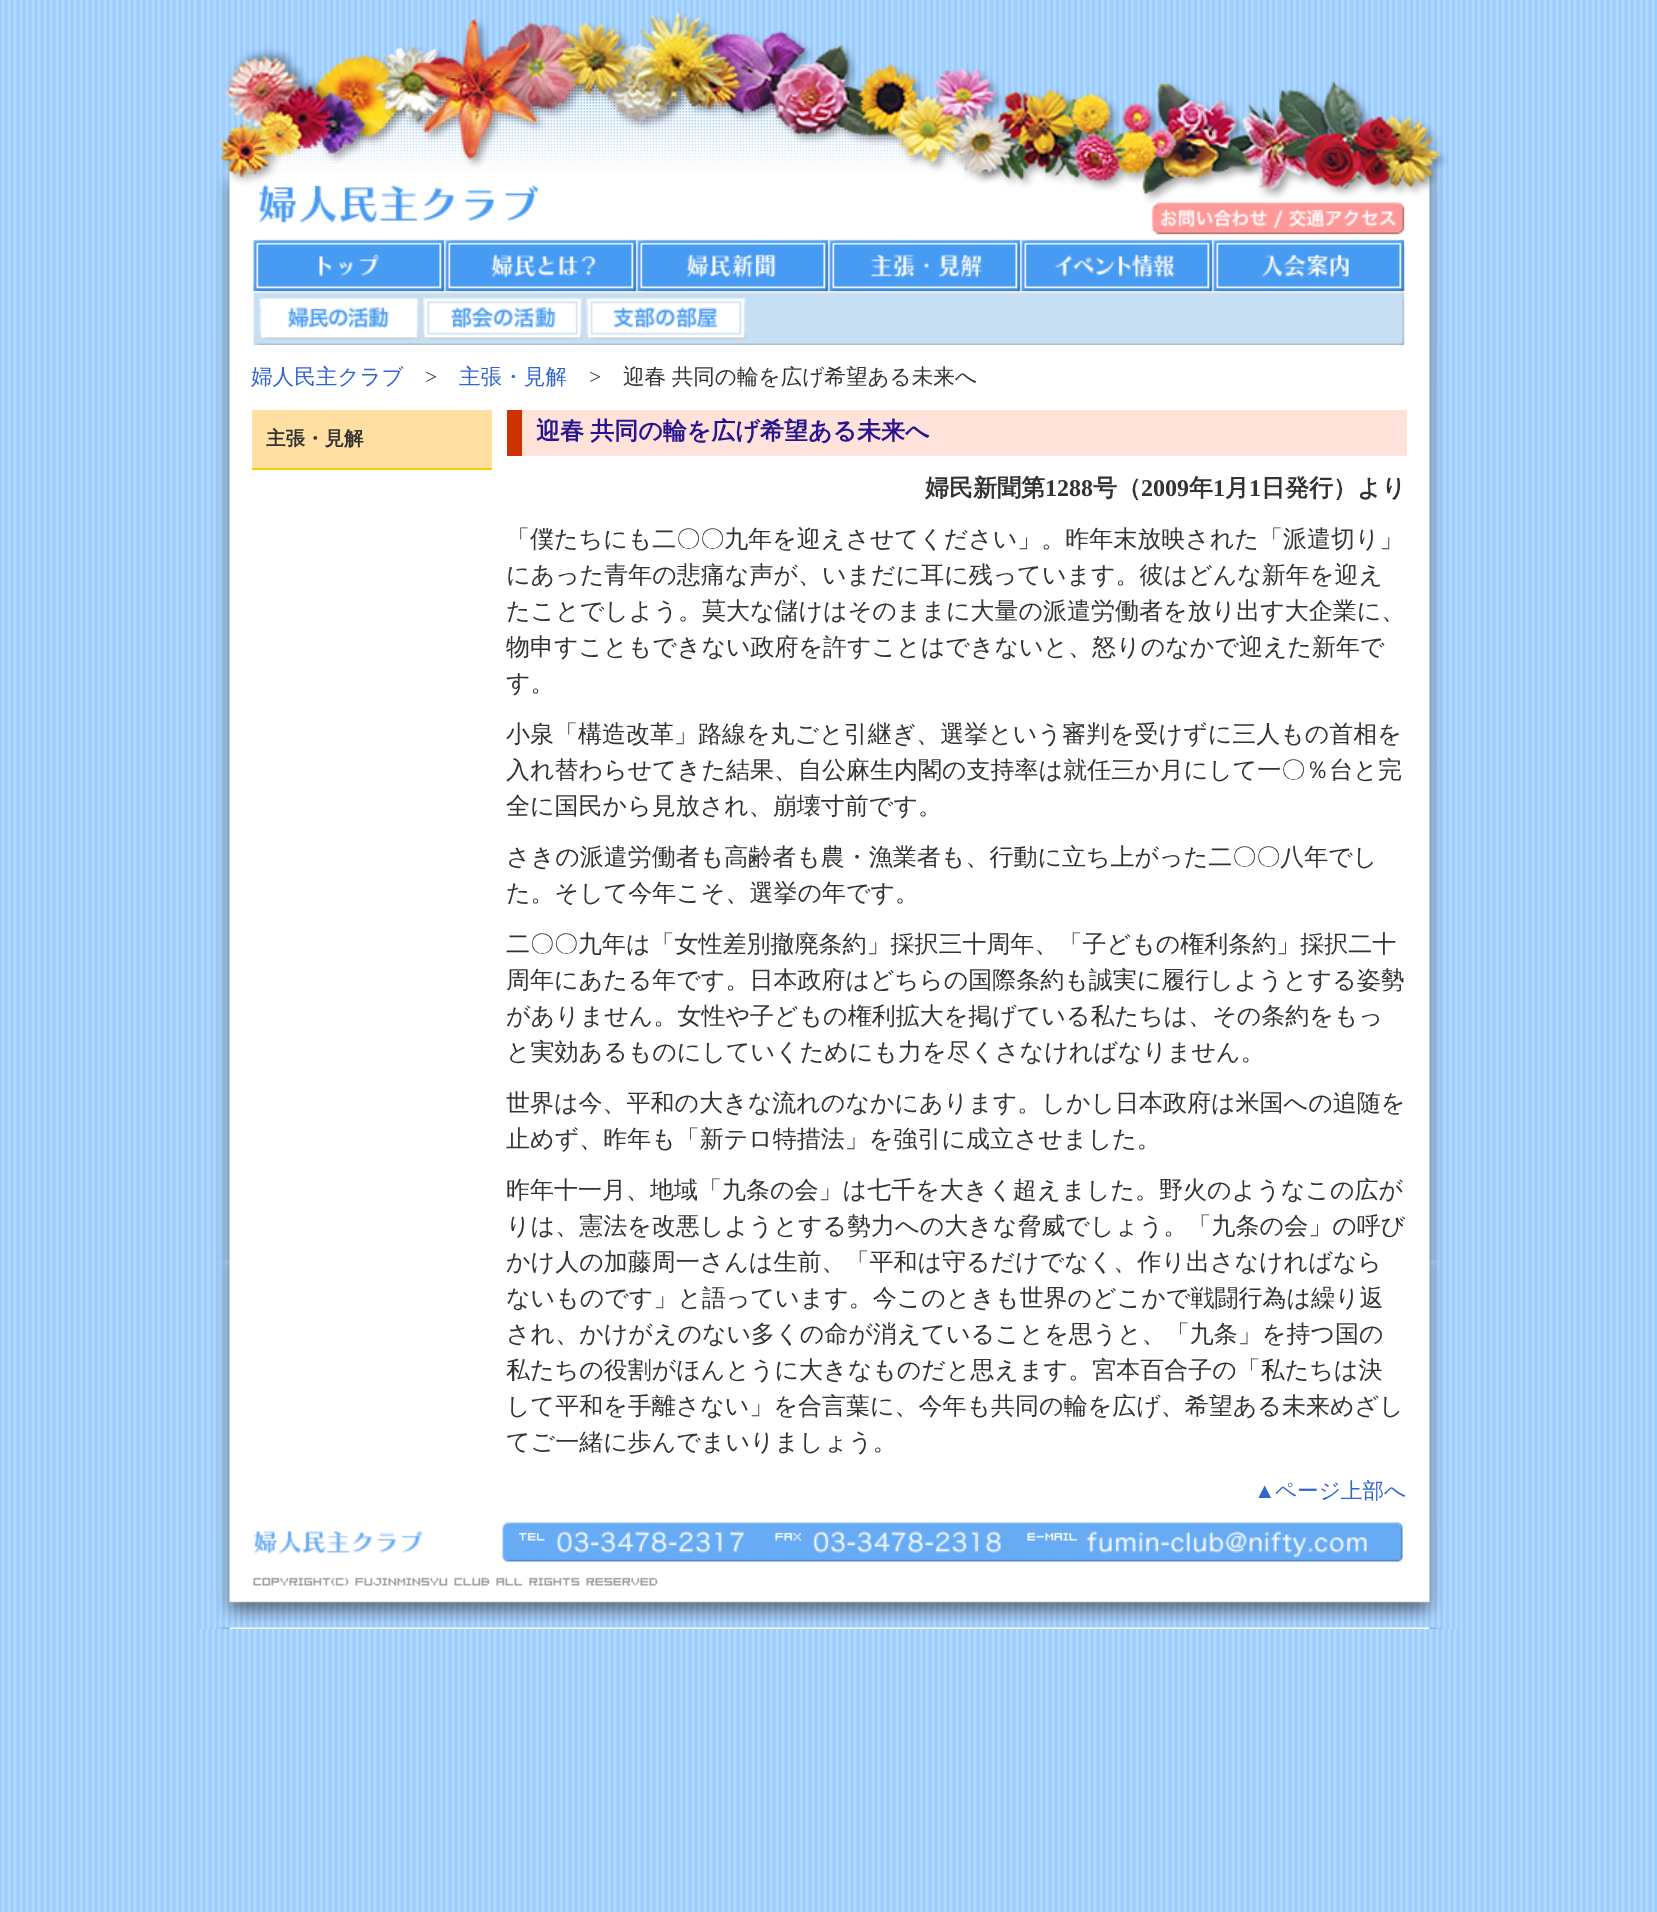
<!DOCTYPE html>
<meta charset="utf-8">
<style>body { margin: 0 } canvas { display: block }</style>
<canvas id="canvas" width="1657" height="1912"></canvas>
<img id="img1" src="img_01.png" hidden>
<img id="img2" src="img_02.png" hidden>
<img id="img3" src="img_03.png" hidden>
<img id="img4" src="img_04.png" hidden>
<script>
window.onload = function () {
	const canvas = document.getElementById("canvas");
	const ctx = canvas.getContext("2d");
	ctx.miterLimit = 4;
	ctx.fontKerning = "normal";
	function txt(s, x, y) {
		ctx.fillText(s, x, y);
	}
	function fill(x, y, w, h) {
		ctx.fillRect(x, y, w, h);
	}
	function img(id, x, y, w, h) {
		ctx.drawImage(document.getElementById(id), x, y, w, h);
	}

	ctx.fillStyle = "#FFFFFF";
	fill(0, 0, 1657, 1912);
	img("img1", 0, 0, 1657, 1912);
	img("img2", 199, 0, 1261, 1629);
	img("img3", 215, 0, 1233, 345);
	ctx.fillStyle = "#FFE0A2";
	fill(252, 410, 240, 58);
	ctx.fillStyle = "#FFCC00";
	fill(252, 468, 240, 2);
	ctx.fillStyle = "#FFE2D9";
	fill(522, 410, 885, 46);
	ctx.fillStyle = "#CC3300";
	fill(507, 410, 15, 46);
	img("img4", 215, 1522, 1229, 106);
	ctx.font = "500 21.6px WenQuanYi Zen Hei";
	ctx.fillStyle = "#3366CC";
	txt("婦人民主クラブ", 251, 384);
	ctx.font = "21.6px Liberation Serif";
	ctx.fillStyle = "#333333";
	txt(">", 425, 384);
	ctx.font = "500 21.6px WenQuanYi Zen Hei";
	ctx.fillStyle = "#3366CC";
	txt("主張・見解", 459, 384);
	ctx.font = "21.6px Liberation Serif";
	ctx.fillStyle = "#333333";
	txt(">", 589, 384);
	ctx.wordSpacing = "-1px";
	ctx.font = "500 21.6px WenQuanYi Zen Hei";
	txt("迎春 共同の輪を広げ希望ある未来へ", 623, 384);
	ctx.wordSpacing = "0px";
	ctx.font = "bold 19.5px WenQuanYi Zen Hei";
	txt("主張・見解", 266, 445);
	ctx.wordSpacing = "-1px";
	ctx.font = "bold 24px WenQuanYi Zen Hei";
	ctx.fillStyle = "#271491";
	txt("迎春 共同の輪を広げ希望ある未来へ", 536, 439);
	ctx.wordSpacing = "0px";
	ctx.fillStyle = "#333333";
	txt("婦民新聞第", 925, 496);
	ctx.font = "bold 24px Liberation Serif";
	txt("1288", 1045, 496);
	ctx.font = "bold 24px WenQuanYi Zen Hei";
	txt("号（", 1093, 496);
	ctx.font = "bold 24px Liberation Serif";
	txt("2009", 1141, 496);
	ctx.font = "bold 24px WenQuanYi Zen Hei";
	txt("年", 1189, 496);
	ctx.font = "bold 24px Liberation Serif";
	txt("1", 1213, 496);
	ctx.font = "bold 24px WenQuanYi Zen Hei";
	txt("月", 1225, 496);
	ctx.font = "bold 24px Liberation Serif";
	txt("1", 1249, 496);
	ctx.font = "bold 24px WenQuanYi Zen Hei";
	txt("日発行）より", 1261, 496);
	ctx.font = "500 24px WenQuanYi Zen Hei";
	txt("「僕たちにも二〇〇九年を迎えさせてください」。昨年末放映された「派遣切り」", 506, 547);
	txt("にあった青年の悲痛な声が、いまだに耳に残っています。彼はどんな新年を迎え", 506, 583);
	txt("たことでしよう。莫大な儲けはそのままに大量の派遣労働者を放り出す大企業に、", 506, 619);
	txt("物申すこともできない政府を許すことはできないと、怒りのなかで迎えた新年で", 506, 655);
	txt("す。", 506, 691);
	txt("小泉「構造改革」路線を丸ごと引継ぎ、選挙という審判を受けずに三人もの首相を", 506, 742);
	txt("入れ替わらせてきた結果、自公麻生内閣の支持率は就任三か月にして一〇％台と完", 506, 778);
	txt("全に国民から見放され、崩壊寸前です。", 506, 814);
	txt("さきの派遣労働者も高齢者も農・漁業者も、行動に立ち上がった二〇〇八年でし", 506, 865);
	txt("た。そして今年こそ、選挙の年です。", 506, 901);
	txt("二〇〇九年は「女性差別撤廃条約」採択三十周年、「子どもの権利条約」採択二十", 506, 952);
	txt("周年にあたる年です。日本政府はどちらの国際条約も誠実に履行しようとする姿勢", 506, 988);
	txt("がありません。女性や子どもの権利拡大を掲げている私たちは、その条約をもっ", 506, 1024);
	txt("と実効あるものにしていくためにも力を尽くさなければなりません。", 506, 1060);
	txt("世界は今、平和の大きな流れのなかにあります。しかし日本政府は米国への追随を", 506, 1111);
	txt("止めず、昨年も「新テロ特措法」を強引に成立させました。", 506, 1147);
	txt("昨年十一月、地域「九条の会」は七千を大きく超えました。野火のようなこの広が", 506, 1198);
	txt("りは、憲法を改悪しようとする勢力への大きな脅威でしょう。「九条の会」の呼び", 506, 1234);
	txt("かけ人の加藤周一さんは生前、「平和は守るだけでなく、作り出さなければなら", 506, 1270);
	txt("ないものです」と語っています。今このときも世界のどこかで戦闘行為は繰り返", 506, 1306);
	txt("され、かけがえのない多くの命が消えていることを思うと、「九条」を持つ国の", 506, 1342);
	txt("私たちの役割がほんとうに大きなものだと思えます。宮本百合子の「私たちは決", 506, 1378);
	txt("して平和を手離さない」を合言葉に、今年も共同の輪を広げ、希望ある未来めざし", 506, 1414);
	txt("てご一緒に歩んでまいりましょう。", 506, 1450);
	ctx.font = "21.6px Liberation Serif";
	ctx.fillStyle = "#3366CC";
	txt("▲", 1254, 1498);
	ctx.font = "500 21.6px WenQuanYi Zen Hei";
	txt("ページ上部へ", 1275, 1498);
};
</script>
